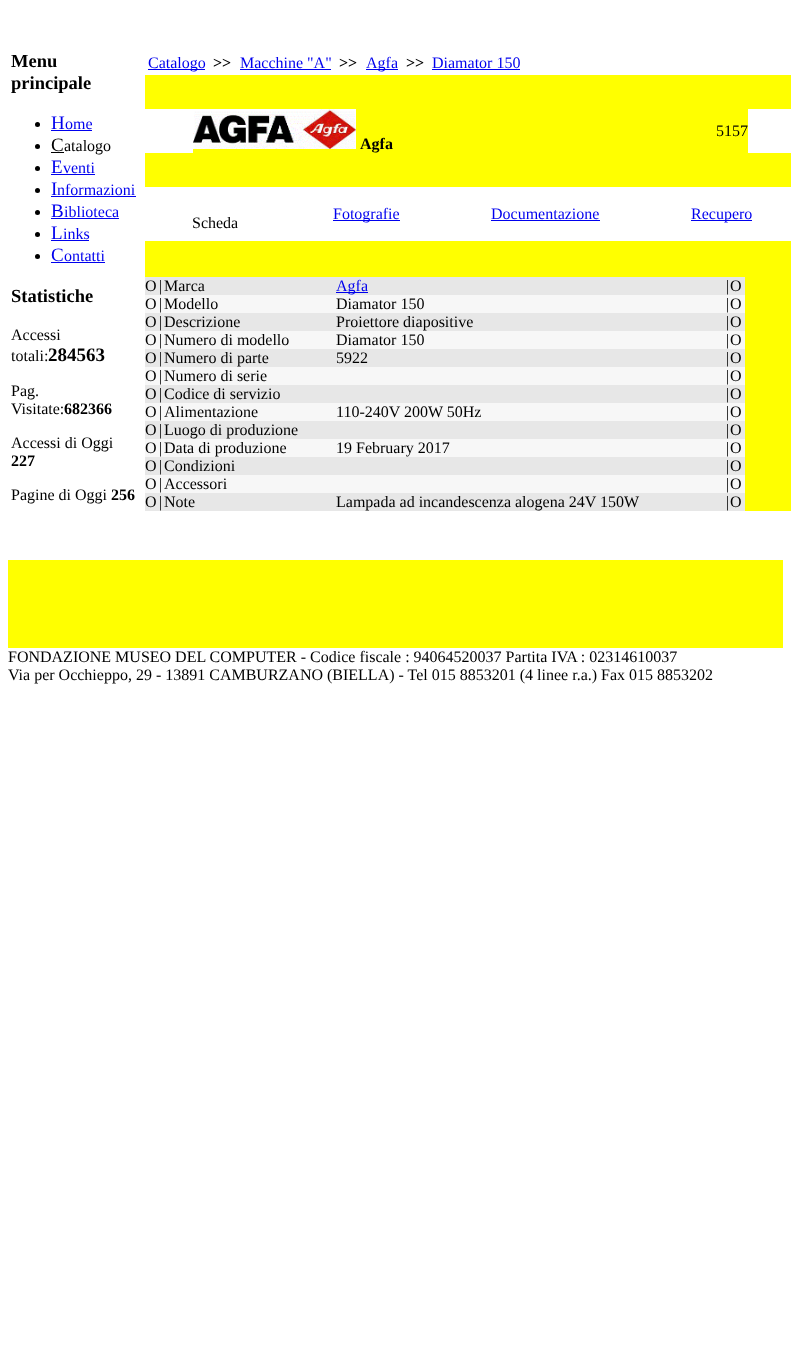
<!DOCTYPE html>
<meta charset="utf-8">
<style>body { margin: 0 } canvas { display: block }</style>
<canvas id="canvas" width="791" height="1349"></canvas>
<img id="img1" src="img_01.png" hidden>
<script>
window.onload = function () {
	const canvas = document.getElementById("canvas");
	const ctx = canvas.getContext("2d");
	ctx.miterLimit = 4;
	ctx.fontKerning = "normal";
	function txt(s, x, y) {
		ctx.fillText(s, x, y);
	}
	function fill(x, y, w, h) {
		ctx.fillRect(x, y, w, h);
	}
	function img(id, x, y, w, h) {
		ctx.drawImage(document.getElementById(id), x, y, w, h);
	}

	ctx.fillStyle = "#FFFFFF";
	fill(0, 0, 791, 1349);
	ctx.fillStyle = "#000000";
	ctx.beginPath();
	ctx.arc(37.5, 124.5, 2.5, 0, Math.PI * 2);
	ctx.fill();
	ctx.fillStyle = "#0000EE";
	fill(51, 130, 41, 1);
	ctx.fillStyle = "#000000";
	ctx.beginPath();
	ctx.arc(37.5, 146.5, 2.5, 0, Math.PI * 2);
	ctx.fill();
	fill(51, 152, 13, 1);
	ctx.beginPath();
	ctx.arc(37.5, 168.5, 2.5, 0, Math.PI * 2);
	ctx.fill();
	ctx.fillStyle = "#0000EE";
	fill(51, 174, 44, 1);
	ctx.fillStyle = "#000000";
	ctx.beginPath();
	ctx.arc(37.5, 190.5, 2.5, 0, Math.PI * 2);
	ctx.fill();
	ctx.fillStyle = "#0000EE";
	fill(51, 196, 85, 1);
	ctx.fillStyle = "#000000";
	ctx.beginPath();
	ctx.arc(37.5, 212.5, 2.5, 0, Math.PI * 2);
	ctx.fill();
	ctx.fillStyle = "#0000EE";
	fill(51, 218, 68, 1);
	ctx.fillStyle = "#000000";
	ctx.beginPath();
	ctx.arc(37.5, 234.5, 2.5, 0, Math.PI * 2);
	ctx.fill();
	ctx.fillStyle = "#0000EE";
	fill(51, 240, 38, 1);
	ctx.fillStyle = "#000000";
	ctx.beginPath();
	ctx.arc(37.5, 256.5, 2.5, 0, Math.PI * 2);
	ctx.fill();
	ctx.fillStyle = "#0000EE";
	fill(51, 262, 54, 1);
	fill(148, 69, 57, 1);
	fill(240, 69, 91, 1);
	fill(366, 69, 32, 1);
	fill(432, 69, 88, 1);
	ctx.fillStyle = "#FFFF00";
	fill(145, 75, 646, 34);
	fill(193, 109, 555, 44);
	img("img1", 193, 109, 163, 40);
	fill(145, 153, 646, 34);
	ctx.fillStyle = "#0000EE";
	fill(333, 220, 67, 1);
	fill(491, 220, 109, 1);
	fill(691, 220, 61, 1);
	ctx.fillStyle = "#FFFF00";
	fill(145, 241, 646, 270);
	ctx.fillStyle = "#E7E7E7";
	fill(145, 277, 600, 18);
	ctx.fillStyle = "#0000EE";
	fill(336, 292, 32, 1);
	ctx.fillStyle = "#F7F7F7";
	fill(145, 295, 600, 18);
	ctx.fillStyle = "#E7E7E7";
	fill(145, 313, 600, 18);
	ctx.fillStyle = "#F7F7F7";
	fill(145, 331, 600, 18);
	ctx.fillStyle = "#E7E7E7";
	fill(145, 349, 600, 18);
	ctx.fillStyle = "#F7F7F7";
	fill(145, 367, 600, 18);
	ctx.fillStyle = "#E7E7E7";
	fill(145, 385, 600, 18);
	ctx.fillStyle = "#F7F7F7";
	fill(145, 403, 600, 18);
	ctx.fillStyle = "#E7E7E7";
	fill(145, 421, 600, 18);
	ctx.fillStyle = "#F7F7F7";
	fill(145, 439, 600, 18);
	ctx.fillStyle = "#E7E7E7";
	fill(145, 457, 600, 18);
	ctx.fillStyle = "#F7F7F7";
	fill(145, 475, 600, 18);
	ctx.fillStyle = "#E7E7E7";
	fill(145, 493, 600, 18);
	ctx.fillStyle = "#FFFF00";
	fill(8, 560, 775, 88);
	ctx.font = "bold 18.5px Liberation Serif";
	ctx.fillStyle = "#000000";
	txt("Menu", 11, 67);
	txt("principale", 11, 89);
	ctx.font = "19px Liberation Serif";
	ctx.fillStyle = "#0000EE";
	txt("H", 51, 129);
	ctx.font = "16px Liberation Serif";
	txt("ome", 65, 129);
	ctx.font = "19px Liberation Serif";
	ctx.fillStyle = "#000000";
	txt("C", 51, 151);
	ctx.font = "16px Liberation Serif";
	txt("atalogo", 64, 151);
	ctx.font = "19px Liberation Serif";
	ctx.fillStyle = "#0000EE";
	txt("E", 51, 173);
	ctx.font = "16px Liberation Serif";
	txt("venti", 63, 173);
	ctx.font = "19px Liberation Serif";
	txt("I", 51, 195);
	ctx.font = "16px Liberation Serif";
	txt("nformazioni", 57, 195);
	ctx.font = "19px Liberation Serif";
	txt("B", 51, 217);
	ctx.font = "16px Liberation Serif";
	txt("iblioteca", 64, 217);
	ctx.font = "19px Liberation Serif";
	txt("L", 51, 239);
	ctx.font = "16px Liberation Serif";
	txt("inks", 63, 239);
	ctx.font = "19px Liberation Serif";
	txt("C", 51, 261);
	ctx.font = "16px Liberation Serif";
	txt("ontatti", 64, 261);
	ctx.font = "bold 18.5px Liberation Serif";
	ctx.fillStyle = "#000000";
	txt("Statistiche", 11, 302);
	ctx.font = "16px Liberation Serif";
	txt("Accessi", 11, 340);
	txt("totali:", 11, 361);
	ctx.font = "bold 19px Liberation Serif";
	txt("284563", 48, 361);
	ctx.font = "16px Liberation Serif";
	txt("Pag.", 11, 396);
	txt("Visitate:", 11, 414);
	ctx.font = "bold 16px Liberation Serif";
	txt("682366", 64, 414);
	ctx.font = "16px Liberation Serif";
	txt("Accessi di Oggi", 11, 448);
	ctx.font = "bold 16px Liberation Serif";
	txt("227", 11, 466);
	ctx.font = "16px Liberation Serif";
	txt("Pagine di Oggi", 11, 500);
	ctx.font = "bold 16px Liberation Serif";
	txt("256", 111, 500);
	ctx.font = "16px Liberation Serif";
	ctx.fillStyle = "#0000EE";
	txt("Catalogo", 148, 68);
	ctx.font = "bold 16px Liberation Serif";
	ctx.fillStyle = "#000000";
	txt(">>", 213, 68);
	ctx.font = "16px Liberation Serif";
	ctx.fillStyle = "#0000EE";
	txt("Macchine \"A\"", 240, 68);
	ctx.font = "bold 16px Liberation Serif";
	ctx.fillStyle = "#000000";
	txt(">>", 339, 68);
	ctx.font = "16px Liberation Serif";
	ctx.fillStyle = "#0000EE";
	txt("Agfa", 366, 68);
	ctx.font = "bold 16px Liberation Serif";
	ctx.fillStyle = "#000000";
	txt(">>", 406, 68);
	ctx.font = "16px Liberation Serif";
	ctx.fillStyle = "#0000EE";
	txt("Diamator 150", 432, 68);
	ctx.fillStyle = "#000000";
	txt("5157", 716, 136);
	ctx.font = "bold 16px Liberation Serif";
	txt("Agfa", 360, 149);
	ctx.font = "16px Liberation Serif";
	txt("Scheda", 192, 228);
	ctx.fillStyle = "#0000EE";
	txt("Fotografie", 333, 219);
	txt("Documentazione", 491, 219);
	txt("Recupero", 691, 219);
	ctx.fillStyle = "#000000";
	txt("O", 145, 291);
	txt("|", 159, 291);
	txt("Marca", 164, 291);
	ctx.fillStyle = "#0000EE";
	txt("Agfa", 336, 291);
	ctx.fillStyle = "#000000";
	txt("|", 726, 291);
	txt("O", 730, 291);
	txt("O", 145, 309);
	txt("|", 159, 309);
	txt("Modello", 164, 309);
	txt("Diamator 150", 336, 309);
	txt("|", 726, 309);
	txt("O", 730, 309);
	txt("O", 145, 327);
	txt("|", 159, 327);
	txt("Descrizione", 164, 327);
	txt("Proiettore diapositive", 336, 327);
	txt("|", 726, 327);
	txt("O", 730, 327);
	txt("O", 145, 345);
	txt("|", 159, 345);
	txt("Numero di modello", 164, 345);
	txt("Diamator 150", 336, 345);
	txt("|", 726, 345);
	txt("O", 730, 345);
	txt("O", 145, 363);
	txt("|", 159, 363);
	txt("Numero di parte", 164, 363);
	txt("5922", 336, 363);
	txt("|", 726, 363);
	txt("O", 730, 363);
	txt("O", 145, 381);
	txt("|", 159, 381);
	txt("Numero di serie", 164, 381);
	txt("|", 726, 381);
	txt("O", 730, 381);
	txt("O", 145, 399);
	txt("|", 159, 399);
	txt("Codice di servizio", 164, 399);
	txt("|", 726, 399);
	txt("O", 730, 399);
	txt("O", 145, 417);
	txt("|", 159, 417);
	txt("Alimentazione", 164, 417);
	txt("110-240V 200W 50Hz", 336, 417);
	txt("|", 726, 417);
	txt("O", 730, 417);
	txt("O", 145, 435);
	txt("|", 159, 435);
	txt("Luogo di produzione", 164, 435);
	txt("|", 726, 435);
	txt("O", 730, 435);
	txt("O", 145, 453);
	txt("|", 159, 453);
	txt("Data di produzione", 164, 453);
	txt("19 February 2017", 336, 453);
	txt("|", 726, 453);
	txt("O", 730, 453);
	txt("O", 145, 471);
	txt("|", 159, 471);
	txt("Condizioni", 164, 471);
	txt("|", 726, 471);
	txt("O", 730, 471);
	txt("O", 145, 489);
	txt("|", 159, 489);
	txt("Accessori", 164, 489);
	txt("|", 726, 489);
	txt("O", 730, 489);
	txt("O", 145, 507);
	txt("|", 159, 507);
	txt("Note", 164, 507);
	txt("Lampada ad incandescenza alogena 24V 150W", 336, 507);
	txt("|", 726, 507);
	txt("O", 730, 507);
	txt("FONDAZIONE MUSEO DEL COMPUTER - Codice fiscale : 94064520037 Partita IVA : 02314610037", 8, 662);
	txt("Via per Occhieppo, 29 - 13891 CAMBURZANO (BIELLA) - Tel 015 8853201 (4 linee r.a.) Fax 015 8853202", 8, 680);
};
</script>
